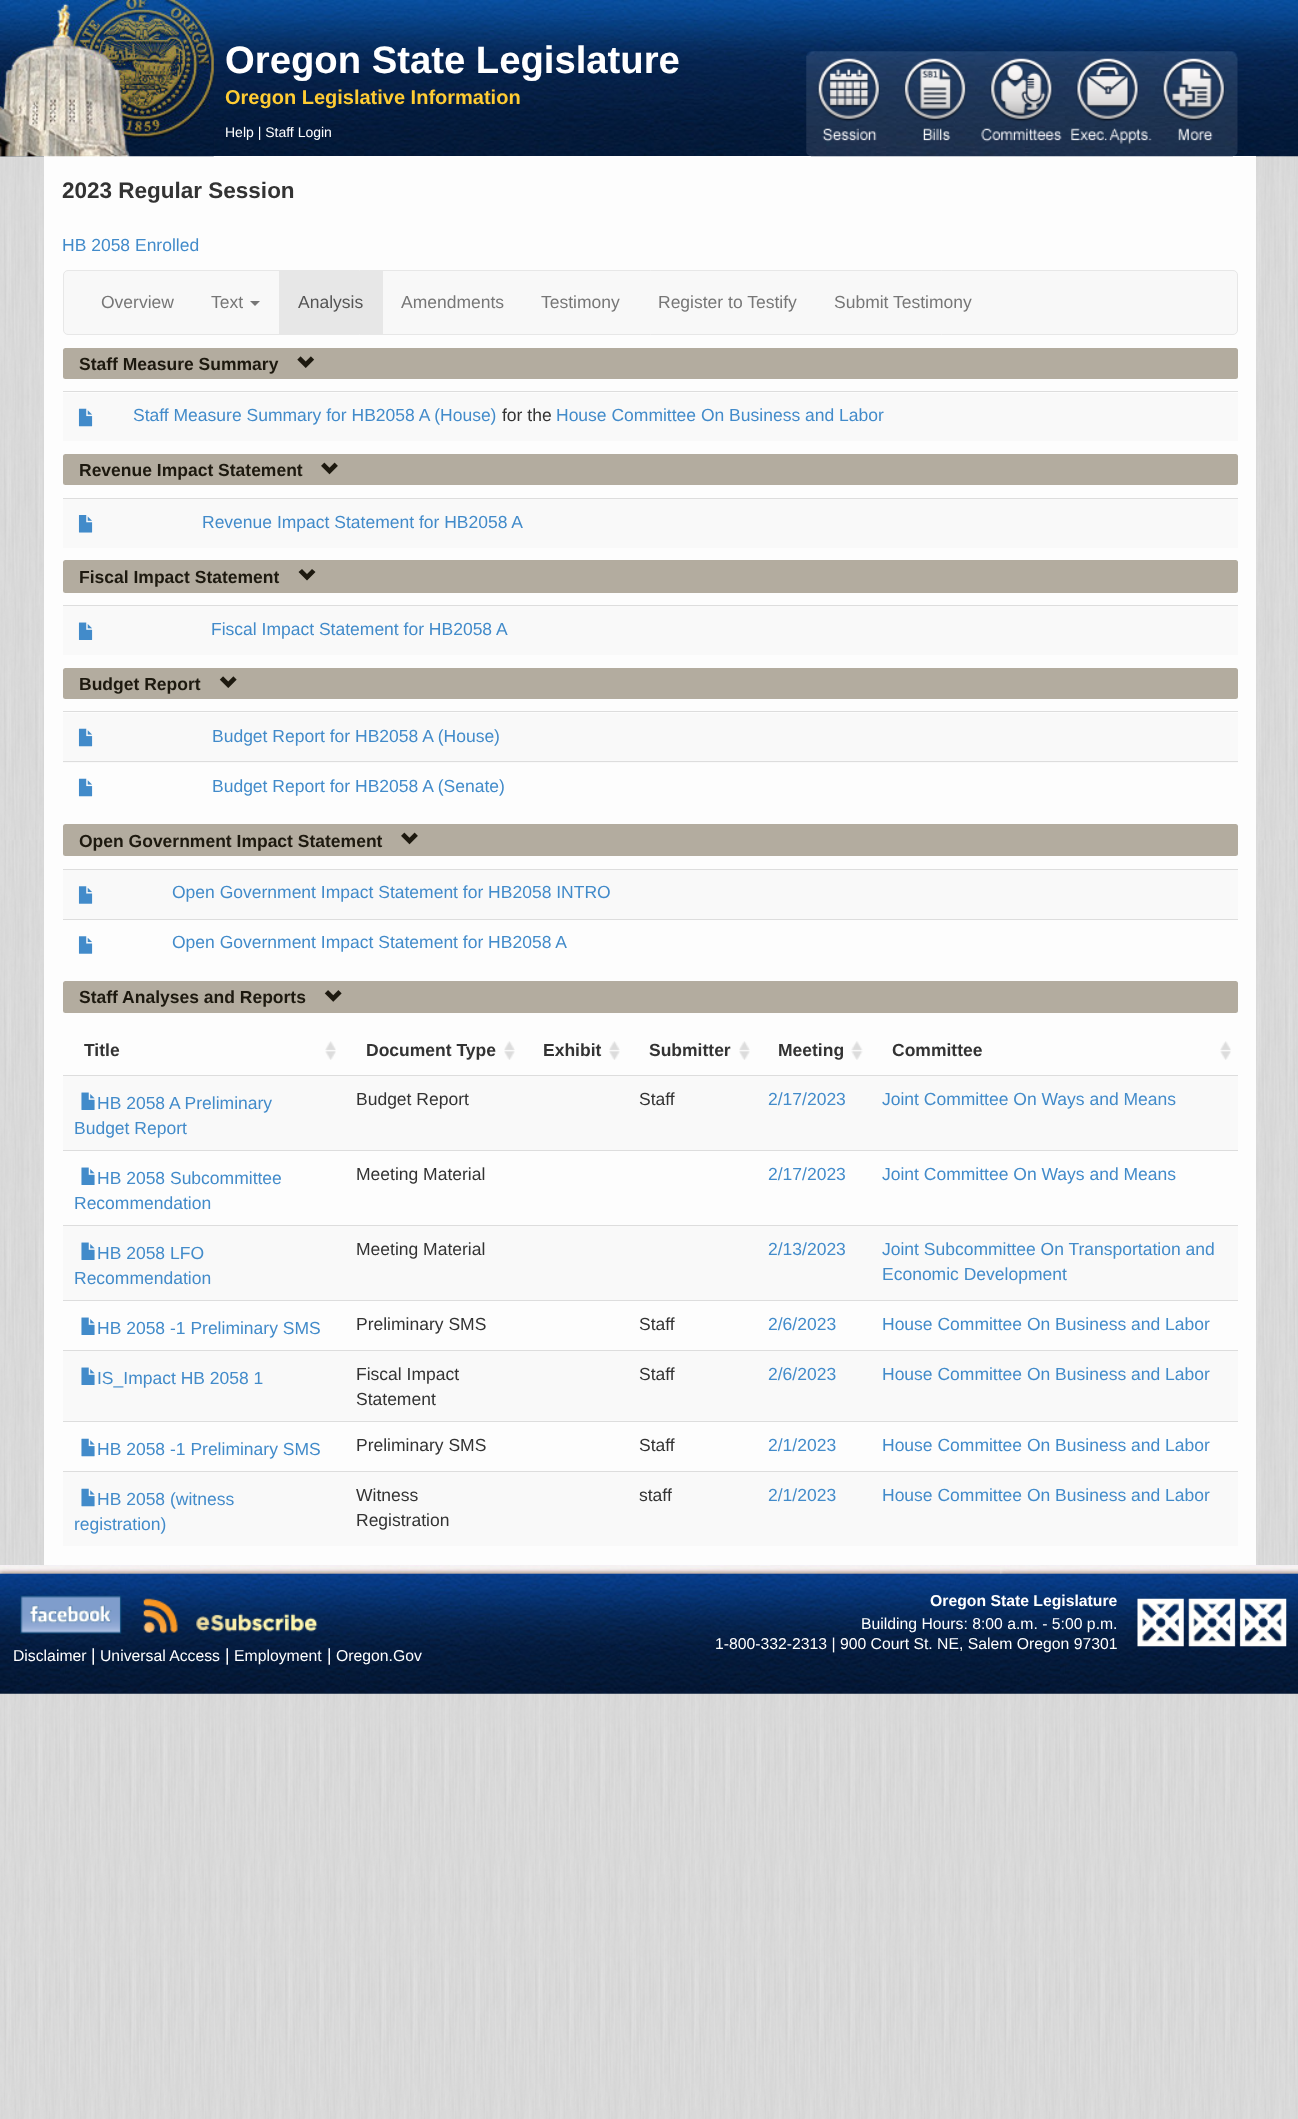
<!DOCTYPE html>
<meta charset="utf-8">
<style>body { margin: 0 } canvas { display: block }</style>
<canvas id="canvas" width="1298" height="2119"></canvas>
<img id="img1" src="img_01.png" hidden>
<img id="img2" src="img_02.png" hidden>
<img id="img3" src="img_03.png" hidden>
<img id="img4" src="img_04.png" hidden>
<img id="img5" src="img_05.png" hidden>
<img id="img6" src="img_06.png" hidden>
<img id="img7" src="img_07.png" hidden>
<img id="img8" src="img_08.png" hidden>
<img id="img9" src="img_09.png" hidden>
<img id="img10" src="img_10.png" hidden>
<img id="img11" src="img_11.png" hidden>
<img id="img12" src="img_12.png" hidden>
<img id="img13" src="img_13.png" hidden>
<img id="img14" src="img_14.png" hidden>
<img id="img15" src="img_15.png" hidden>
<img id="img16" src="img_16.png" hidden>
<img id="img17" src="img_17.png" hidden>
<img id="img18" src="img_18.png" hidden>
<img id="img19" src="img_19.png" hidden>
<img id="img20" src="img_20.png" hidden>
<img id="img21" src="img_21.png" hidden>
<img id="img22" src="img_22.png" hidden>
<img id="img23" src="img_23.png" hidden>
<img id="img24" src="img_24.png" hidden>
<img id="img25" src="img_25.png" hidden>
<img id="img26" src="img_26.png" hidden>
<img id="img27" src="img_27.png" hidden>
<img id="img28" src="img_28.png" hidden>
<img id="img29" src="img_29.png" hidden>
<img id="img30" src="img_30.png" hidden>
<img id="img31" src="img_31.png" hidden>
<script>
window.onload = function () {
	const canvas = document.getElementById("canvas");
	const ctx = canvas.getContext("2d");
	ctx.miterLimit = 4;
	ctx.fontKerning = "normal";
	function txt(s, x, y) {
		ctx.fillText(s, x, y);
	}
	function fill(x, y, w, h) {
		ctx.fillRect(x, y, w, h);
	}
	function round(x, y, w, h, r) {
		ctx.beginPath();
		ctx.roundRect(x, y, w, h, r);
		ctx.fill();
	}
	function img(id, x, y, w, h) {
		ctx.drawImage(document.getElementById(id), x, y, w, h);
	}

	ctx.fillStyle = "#FFFFFF";
	fill(0, 0, 1298, 2119);
	img("img1", 0, 156, 1298, 1963);
	img("img2", 0, 0, 1298, 157);
	ctx.fillStyle = "#FDFDFD";
	fill(44, 156, 1212, 1409);
	img("img3", 0, 0, 214, 157);
	img("img4", 806, 51, 432, 106);
	img("img5", 817, 58, 63, 84);
	img("img6", 904, 58, 63, 83);
	img("img7", 981, 58, 81, 84);
	img("img8", 1071, 58, 81, 86);
	img("img9", 1162, 58, 63, 83);
	ctx.fillStyle = "#F8F8F8";
	ctx.beginPath();
	ctx.roundRect(63.5, 270.5, 1174, 64, 4.5);
	ctx.fill();
	ctx.strokeStyle = "#E7E7E7";
	ctx.stroke();
	ctx.fillStyle = "#777777";
	ctx.beginPath();
	ctx.moveTo(250, 301);
	ctx.lineTo(260, 301);
	ctx.lineTo(255, 306);
	ctx.closePath();
	ctx.fill();
	ctx.fillStyle = "#E7E7E7";
	fill(279, 271, 104, 63);
	ctx.fillStyle = "#B3AC9F";
	round(63, 348, 1175, 31, 2.5);
	img("img10", 297, 356, 18, 12);
	ctx.fillStyle = "#F9F9F9";
	fill(63, 393, 1175, 48);
	img("img11", 78, 408, 15, 19);
	ctx.fillStyle = "#DDDDDD";
	fill(63, 391, 1175, 1);
	ctx.fillStyle = "#B3AC9F";
	round(63, 454, 1175, 31, 2.5);
	img("img12", 321, 462, 17, 13);
	ctx.fillStyle = "#F9F9F9";
	fill(63, 499, 1175, 49);
	img("img13", 78, 515, 15, 18);
	ctx.fillStyle = "#DDDDDD";
	fill(63, 498, 1175, 1);
	ctx.fillStyle = "#B3AC9F";
	round(63, 560, 1175, 33, 2.5);
	ctx.fillStyle = "#1D190F";
	ctx.beginPath();
	ctx.moveTo(298.5, 572);
	ctx.lineTo(307, 580.5);
	ctx.lineTo(315.5, 572);
	ctx.lineTo(312, 569);
	ctx.lineTo(307, 574);
	ctx.lineTo(302, 569);
	ctx.closePath();
	ctx.fill();
	ctx.fillStyle = "#F9F9F9";
	fill(63, 606, 1175, 49);
	img("img14", 78, 622, 15, 18);
	ctx.fillStyle = "#DDDDDD";
	fill(63, 605, 1175, 1);
	ctx.fillStyle = "#B3AC9F";
	round(63, 668, 1175, 31, 2.5);
	img("img15", 219, 676, 18, 12);
	ctx.fillStyle = "#F9F9F9";
	fill(63, 713, 1175, 50);
	img("img11", 78, 728, 15, 19);
	ctx.fillStyle = "#DDDDDD";
	fill(63, 711, 1175, 1);
	img("img16", 78, 778, 15, 19);
	fill(63, 761, 1175, 1);
	ctx.fillStyle = "#B3AC9F";
	round(63, 824, 1175, 32, 2.5);
	img("img12", 401, 832, 17, 13);
	ctx.fillStyle = "#F9F9F9";
	fill(63, 870, 1175, 49);
	img("img17", 78, 886, 15, 18);
	ctx.fillStyle = "#DDDDDD";
	fill(63, 869, 1175, 1);
	img("img18", 78, 936, 15, 18);
	fill(63, 919, 1175, 1);
	ctx.fillStyle = "#B3AC9F";
	round(63, 981, 1175, 32, 2.5);
	img("img19", 324, 990, 18, 12);
	img("img20", 325, 1041, 11, 19);
	img("img21", 504, 1041, 11, 19);
	img("img21", 609, 1041, 11, 19);
	img("img21", 739, 1041, 11, 19);
	img("img22", 851, 1041, 12, 19);
	img("img20", 1220, 1041, 11, 19);
	ctx.fillStyle = "#F9F9F9";
	fill(63, 1076, 1175, 74);
	ctx.fillStyle = "#DDDDDD";
	fill(63, 1075, 1175, 1);
	img("img23", 81, 1092, 14, 18);
	fill(63, 1150, 1175, 1);
	img("img24", 81, 1167, 14, 18);
	ctx.fillStyle = "#F9F9F9";
	fill(63, 1226, 1175, 74);
	ctx.fillStyle = "#DDDDDD";
	fill(63, 1225, 1175, 1);
	img("img23", 81, 1242, 14, 18);
	fill(63, 1300, 1175, 1);
	img("img24", 81, 1317, 14, 18);
	ctx.fillStyle = "#F9F9F9";
	fill(63, 1351, 1175, 70);
	ctx.fillStyle = "#DDDDDD";
	fill(63, 1350, 1175, 1);
	img("img23", 81, 1367, 14, 18);
	fill(63, 1421, 1175, 1);
	img("img25", 81, 1438, 14, 19);
	ctx.fillStyle = "#F9F9F9";
	fill(63, 1472, 1175, 74);
	ctx.fillStyle = "#DDDDDD";
	fill(63, 1471, 1175, 1);
	img("img26", 81, 1488, 14, 19);
	img("img27", 0, 1565, 1298, 129);
	img("img28", 1137, 1598, 150, 49);
	img("img29", 20, 1595, 102, 39);
	img("img30", 143, 1598, 35, 36);
	img("img31", 196, 1613, 122, 19);
	ctx.font = "bold 38.25px Liberation Sans";
	ctx.fillStyle = "#FFFFFF";
	txt("Oregon State Legislature", 225, 73);
	ctx.font = "bold 20px Liberation Sans";
	ctx.fillStyle = "#FFCC33";
	txt("Oregon Legislative Information", 225, 104);
	ctx.font = "14px Liberation Sans";
	ctx.fillStyle = "#FFFFFF";
	txt("Help | Staff Login", 225, 137);
	ctx.font = "bold 22.5px Liberation Sans";
	ctx.fillStyle = "#333333";
	txt("2023 Regular Session", 62, 198);
	ctx.font = "17.5px Liberation Sans";
	ctx.fillStyle = "#428BCA";
	txt("HB 2058 Enrolled", 62, 251);
	ctx.fillStyle = "#777777";
	txt("Overview", 101, 308);
	txt("Text", 211, 308);
	ctx.fillStyle = "#555555";
	txt("Analysis", 298, 308);
	ctx.fillStyle = "#777777";
	txt("Amendments", 401, 308);
	txt("Testimony", 541, 308);
	txt("Register to Testify", 658, 308);
	txt("Submit Testimony", 834, 308);
	ctx.font = "bold 17.5px Liberation Sans";
	ctx.fillStyle = "#1D190F";
	txt("Staff Measure Summary", 79, 370);
	ctx.font = "17.5px Liberation Sans";
	ctx.fillStyle = "#428BCA";
	txt("Staff Measure Summary for HB2058 A (House)", 133, 421);
	ctx.fillStyle = "#333333";
	txt("for the", 502, 421);
	ctx.fillStyle = "#428BCA";
	txt("House Committee On Business and Labor", 556, 421);
	ctx.font = "bold 17.5px Liberation Sans";
	ctx.fillStyle = "#1D190F";
	txt("Revenue Impact Statement", 79, 476);
	ctx.font = "17.5px Liberation Sans";
	ctx.fillStyle = "#428BCA";
	txt("Revenue Impact Statement for HB2058 A", 202, 528);
	ctx.font = "bold 17.5px Liberation Sans";
	ctx.fillStyle = "#1D190F";
	txt("Fiscal Impact Statement", 79, 583);
	ctx.font = "17.5px Liberation Sans";
	ctx.fillStyle = "#428BCA";
	txt("Fiscal Impact Statement for HB2058 A", 211, 635);
	ctx.font = "bold 17.5px Liberation Sans";
	ctx.fillStyle = "#1D190F";
	txt("Budget Report", 79, 690);
	ctx.font = "17.5px Liberation Sans";
	ctx.fillStyle = "#428BCA";
	txt("Budget Report for HB2058 A (House)", 212, 742);
	txt("Budget Report for HB2058 A (Senate)", 212, 792);
	ctx.font = "bold 17.5px Liberation Sans";
	ctx.fillStyle = "#1D190F";
	txt("Open Government Impact Statement", 79, 847);
	ctx.font = "17.5px Liberation Sans";
	ctx.fillStyle = "#428BCA";
	txt("Open Government Impact Statement for HB2058 INTRO", 172, 898);
	txt("Open Government Impact Statement for HB2058 A", 172, 948);
	ctx.font = "bold 17.5px Liberation Sans";
	ctx.fillStyle = "#1D190F";
	txt("Staff Analyses and Reports", 79, 1003);
	ctx.fillStyle = "#333333";
	txt("Title", 84, 1056);
	txt("Document Type", 366, 1056);
	txt("Exhibit", 543, 1056);
	txt("Submitter", 649, 1056);
	txt("Meeting", 778, 1056);
	txt("Committee", 892, 1056);
	ctx.font = "17.5px Liberation Sans";
	ctx.fillStyle = "#428BCA";
	txt("HB 2058 A Preliminary", 97, 1109);
	txt("Budget Report", 74, 1134);
	ctx.fillStyle = "#333333";
	txt("Budget Report", 356, 1105);
	txt("Staff", 639, 1105);
	ctx.fillStyle = "#428BCA";
	txt("2/17/2023", 768, 1105);
	txt("Joint Committee On Ways and Means", 882, 1105);
	txt("HB 2058 Subcommittee", 97, 1184);
	txt("Recommendation", 74, 1209);
	ctx.fillStyle = "#333333";
	txt("Meeting Material", 356, 1180);
	ctx.fillStyle = "#428BCA";
	txt("2/17/2023", 768, 1180);
	txt("Joint Committee On Ways and Means", 882, 1180);
	txt("HB 2058 LFO", 97, 1259);
	txt("Recommendation", 74, 1284);
	ctx.fillStyle = "#333333";
	txt("Meeting Material", 356, 1255);
	ctx.fillStyle = "#428BCA";
	txt("2/13/2023", 768, 1255);
	txt("Joint Subcommittee On Transportation and", 882, 1255);
	txt("Economic Development", 882, 1280);
	txt("HB 2058 -1 Preliminary SMS", 97, 1334);
	ctx.fillStyle = "#333333";
	txt("Preliminary SMS", 356, 1330);
	txt("Staff", 639, 1330);
	ctx.fillStyle = "#428BCA";
	txt("2/6/2023", 768, 1330);
	txt("House Committee On Business and Labor", 882, 1330);
	txt("IS_Impact HB 2058 1", 97, 1384);
	ctx.fillStyle = "#333333";
	txt("Fiscal Impact", 356, 1380);
	txt("Statement", 356, 1405);
	txt("Staff", 639, 1380);
	ctx.fillStyle = "#428BCA";
	txt("2/6/2023", 768, 1380);
	txt("House Committee On Business and Labor", 882, 1380);
	txt("HB 2058 -1 Preliminary SMS", 97, 1455);
	ctx.fillStyle = "#333333";
	txt("Preliminary SMS", 356, 1451);
	txt("Staff", 639, 1451);
	ctx.fillStyle = "#428BCA";
	txt("2/1/2023", 768, 1451);
	txt("House Committee On Business and Labor", 882, 1451);
	txt("HB 2058 (witness", 97, 1505);
	txt("registration)", 74, 1530);
	ctx.fillStyle = "#333333";
	txt("Witness", 356, 1501);
	txt("Registration", 356, 1526);
	txt("staff", 639, 1501);
	ctx.fillStyle = "#428BCA";
	txt("2/1/2023", 768, 1501);
	txt("House Committee On Business and Labor", 882, 1501);
	ctx.font = "bold 15.75px Liberation Sans";
	ctx.fillStyle = "#FFFFFF";
	txt("Oregon State Legislature", 930, 1606);
	ctx.font = "15.75px Liberation Sans";
	txt("Building Hours: 8:00 a.m. - 5:00 p.m.", 861, 1629);
	txt("1-800-332-2313 | 900 Court St. NE, Salem Oregon 97301", 715, 1649);
	txt("Disclaimer", 13, 1661);
	ctx.font = "17.5px Liberation Sans";
	txt("|", 91, 1661);
	ctx.font = "15.75px Liberation Sans";
	txt("Universal Access", 100, 1661);
	ctx.font = "17.5px Liberation Sans";
	txt("|", 225, 1661);
	ctx.font = "15.75px Liberation Sans";
	txt("Employment", 234, 1661);
	ctx.font = "17.5px Liberation Sans";
	txt("|", 327, 1661);
	ctx.font = "15.75px Liberation Sans";
	txt("Oregon.Gov", 336, 1661);
};
</script>
